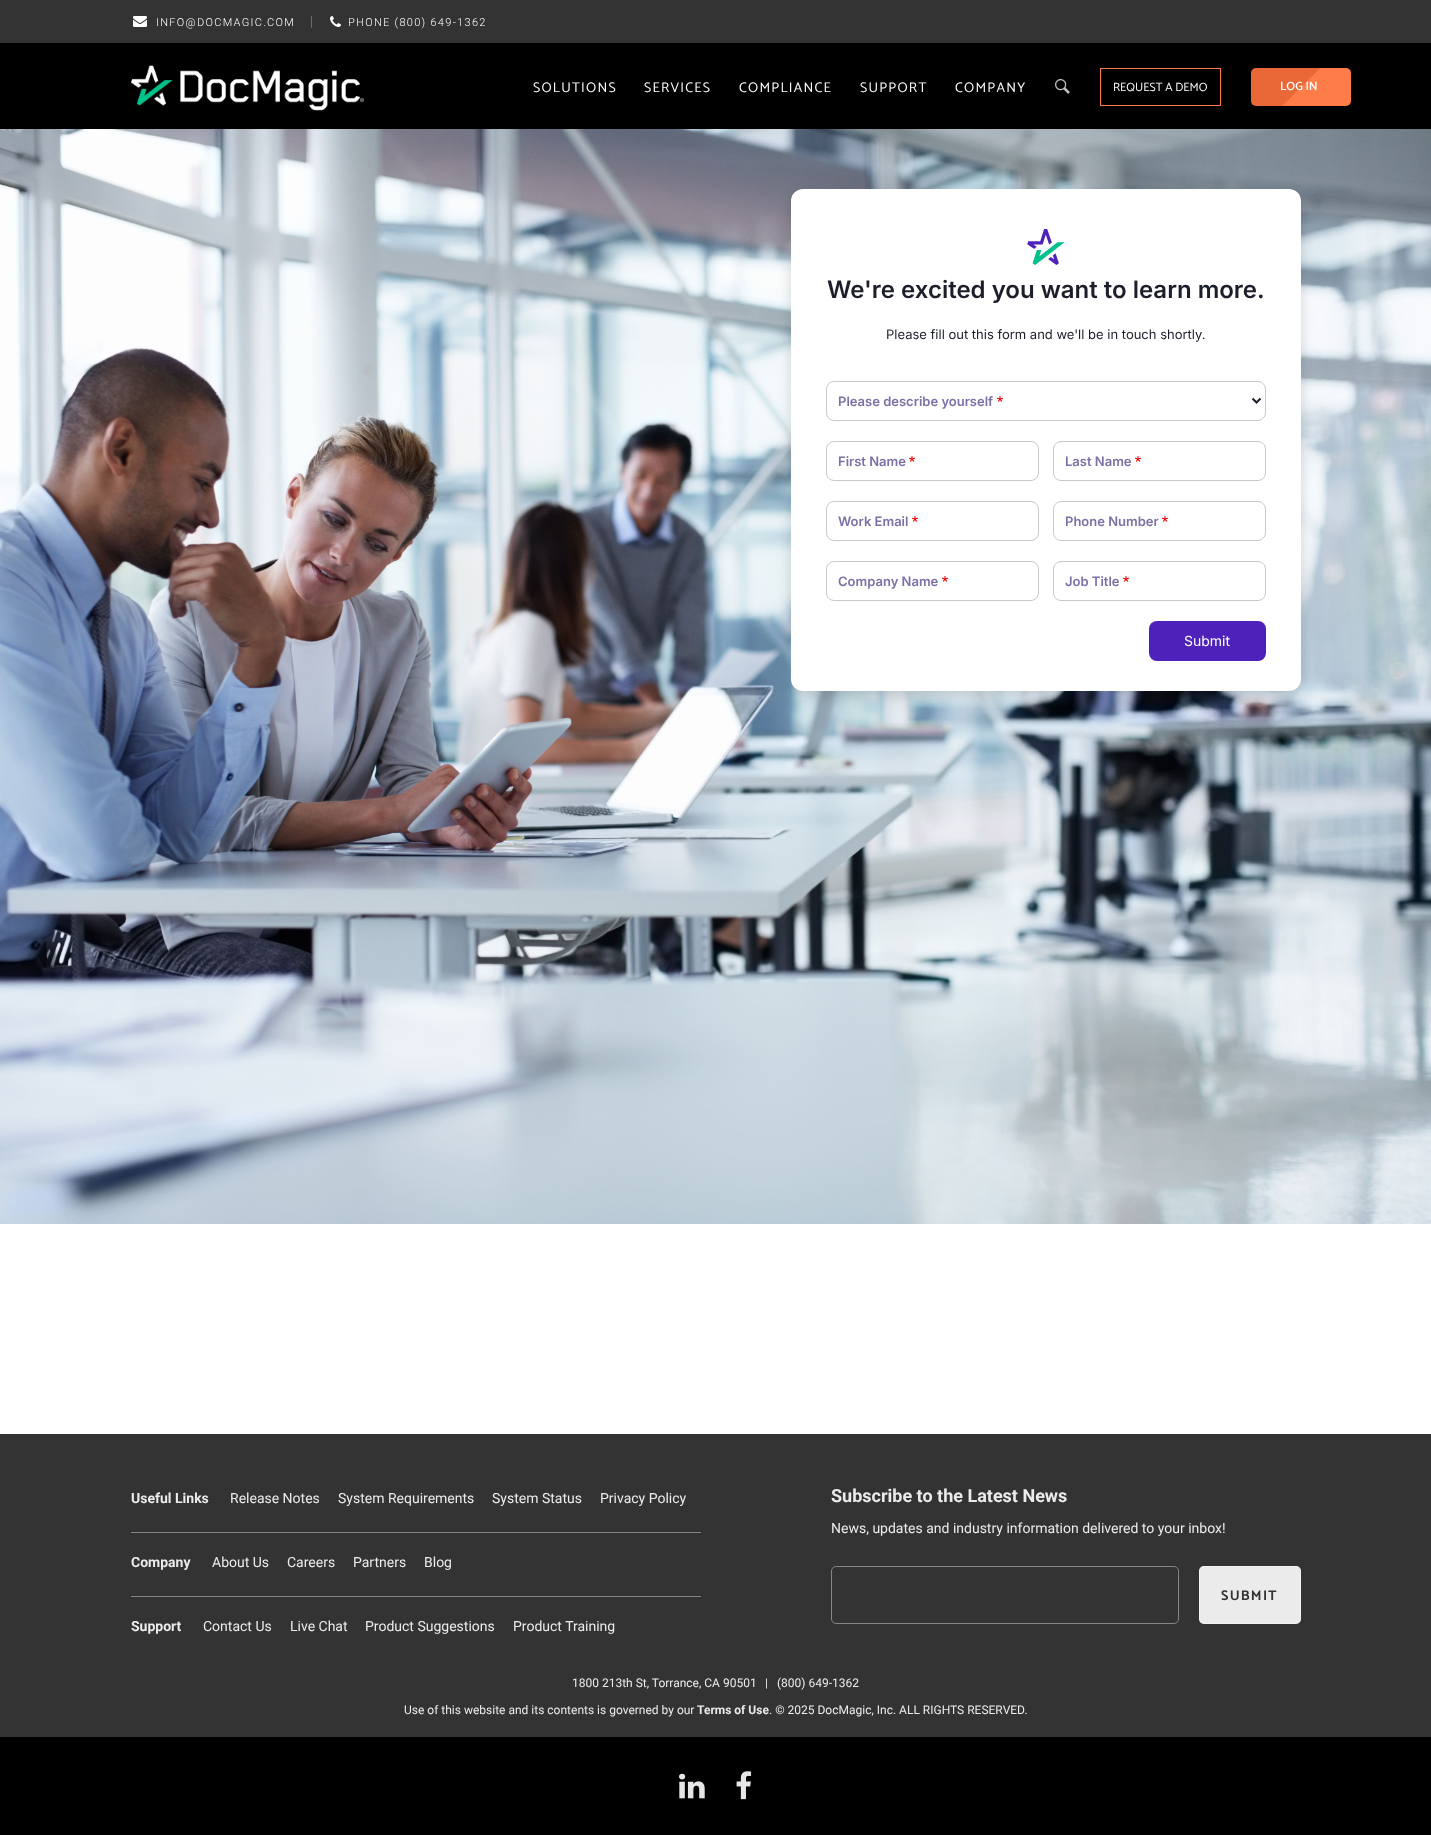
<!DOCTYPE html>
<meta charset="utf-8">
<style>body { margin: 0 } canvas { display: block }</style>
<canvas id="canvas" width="1431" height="1835"></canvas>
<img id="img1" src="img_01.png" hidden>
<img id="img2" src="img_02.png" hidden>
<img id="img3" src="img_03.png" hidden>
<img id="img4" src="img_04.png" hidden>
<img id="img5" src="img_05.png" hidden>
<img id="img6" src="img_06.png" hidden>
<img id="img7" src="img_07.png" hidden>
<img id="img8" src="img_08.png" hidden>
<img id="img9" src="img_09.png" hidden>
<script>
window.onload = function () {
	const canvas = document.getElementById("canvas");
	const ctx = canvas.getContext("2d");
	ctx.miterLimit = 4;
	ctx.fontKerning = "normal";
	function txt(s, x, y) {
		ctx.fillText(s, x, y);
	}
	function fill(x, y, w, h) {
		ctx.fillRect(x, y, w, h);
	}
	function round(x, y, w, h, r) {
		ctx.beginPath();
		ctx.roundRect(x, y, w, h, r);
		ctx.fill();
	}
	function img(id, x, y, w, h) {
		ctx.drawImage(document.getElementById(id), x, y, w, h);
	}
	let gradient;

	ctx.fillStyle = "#FFFFFF";
	fill(0, 0, 1431, 1835);
	ctx.fillStyle = "#333333";
	fill(0, 0, 1431, 43);
	img("img1", 133, 16, 14, 11);
	img("img2", 330, 16, 11, 11);
	ctx.fillStyle = "#000000";
	fill(0, 43, 1431, 86);
	img("img3", 131, 65, 233, 46);
	img("img4", 1055, 79, 15, 15);
	ctx.strokeStyle = "#FC7C47";
	ctx.strokeRect(1100.5, 68.5, 120, 37);
	gradient = ctx.createLinearGradient(1267, 53, 1336, 122);
	gradient.addColorStop(0, "#EA6837");
	gradient.addColorStop(0.49, "#EA6837");
	gradient.addColorStop(0.5, "#FD7C47");
	gradient.addColorStop(1, "#FD7C47");
	ctx.fillStyle = gradient;
	round(1251, 68, 100, 38, 5);
	img("img5", 0, 129, 1431, 1095);
	ctx.fillStyle = "rgba(0, 0, 0, 0.15)";
	ctx.filter = "blur(7px)";
	ctx.beginPath();
	ctx.roundRect(791, 194, 510, 502, 12);
	ctx.fill();
	ctx.filter = "none";
	ctx.fillStyle = "#FFFFFF";
	round(791, 189, 510, 502, 12);
	img("img6", 1027, 229, 38, 36);
	ctx.beginPath();
	ctx.roundRect(826.5, 381.5, 439, 39, 7.5);
	ctx.strokeStyle = "#C8C9CC";
	ctx.stroke();
	ctx.beginPath();
	ctx.moveTo(1252.5, 398.5);
	ctx.lineTo(1256.5, 402.5);
	ctx.lineTo(1260.5, 398.5);
	ctx.strokeStyle = "#1C1F2A";
	ctx.lineWidth = 2;
	ctx.stroke();
	img("img7", 997, 396, 6, 6);
	ctx.beginPath();
	ctx.roundRect(826.5, 441.5, 212, 39, 7.5);
	ctx.strokeStyle = "#C8C9CC";
	ctx.lineWidth = 1;
	ctx.stroke();
	img("img7", 909, 456, 6, 6);
	ctx.beginPath();
	ctx.roundRect(1053.5, 441.5, 212, 39, 7.5);
	ctx.stroke();
	img("img7", 1135, 456, 6, 6);
	ctx.beginPath();
	ctx.roundRect(826.5, 501.5, 212, 39, 7.5);
	ctx.stroke();
	img("img7", 912, 516, 6, 6);
	ctx.beginPath();
	ctx.roundRect(1053.5, 501.5, 212, 39, 7.5);
	ctx.stroke();
	img("img7", 1162, 516, 6, 6);
	ctx.beginPath();
	ctx.roundRect(826.5, 561.5, 212, 39, 7.5);
	ctx.stroke();
	img("img7", 942, 576, 6, 6);
	ctx.beginPath();
	ctx.roundRect(1053.5, 561.5, 212, 39, 7.5);
	ctx.stroke();
	img("img7", 1123, 576, 6, 6);
	ctx.fillStyle = "#4E22BA";
	round(1149, 621, 117, 40, 8);
	ctx.fillStyle = "#333333";
	fill(0, 1434, 1431, 303);
	ctx.fillStyle = "#858585";
	fill(131, 1532, 570, 1);
	ctx.beginPath();
	ctx.roundRect(831.5, 1566.5, 347, 57, 4.5);
	ctx.strokeStyle = "#858585";
	ctx.stroke();
	ctx.fillStyle = "#EBEBEB";
	round(1199, 1566, 102, 58, 5);
	ctx.beginPath();
	ctx.roundRect(1199.5, 1566.5, 101, 57, 4.5);
	ctx.strokeStyle = "rgba(255, 255, 255, 0.4)";
	ctx.stroke();
	ctx.fillStyle = "#858585";
	fill(131, 1596, 570, 1);
	ctx.fillStyle = "#000000";
	fill(0, 1737, 1431, 98);
	img("img8", 679, 1773, 26, 26);
	img("img9", 736, 1771, 16, 29);
	ctx.letterSpacing = "1.3px";
	ctx.font = "300 11px Roboto";
	ctx.fillStyle = "#FFFFFF";
	txt("INFO@DOCMAGIC.COM", 156, 26);
	ctx.letterSpacing = "1px";
	ctx.font = "300 14px Roboto";
	ctx.fillStyle = "#808080";
	txt("|", 310, 26);
	ctx.letterSpacing = "1.3px";
	ctx.font = "300 11px Roboto";
	ctx.fillStyle = "#FFFFFF";
	txt("PHONE (800) 649-1362", 348, 26);
	ctx.letterSpacing = "1.25px";
	ctx.font = "14px Catamaran";
	txt("SOLUTIONS", 533, 92);
	txt("SERVICES", 644, 92);
	txt("COMPLIANCE", 739, 92);
	txt("SUPPORT", 860, 92);
	txt("COMPANY", 955, 92);
	ctx.letterSpacing = "0px";
	ctx.font = "12px Catamaran";
	txt("REQUEST A DEMO", 1113, 91);
	ctx.font = "600 12px Catamaran";
	txt("LOG IN", 1280, 90);
	ctx.font = "600 24px Inter";
	ctx.fillStyle = "#1C1F2A";
	txt("We're excited you want to learn more.", 827, 298);
	ctx.font = "13px Inter";
	txt("Please fill out this form and we'll be in touch shortly.", 886, 339);
	ctx.font = "600 13px Inter";
	ctx.fillStyle = "#7E70A7";
	txt("Please describe yourself", 838, 406);
	txt("First Name", 838, 466);
	txt("Last Name", 1065, 466);
	txt("Work Email", 838, 526);
	txt("Phone Number", 1065, 526);
	txt("Company Name", 838, 586);
	txt("Job Title", 1065, 586);
	ctx.font = "14px Inter";
	ctx.fillStyle = "#FFFFFF";
	txt("Submit", 1184, 646);
	ctx.font = "bold 14px Roboto";
	ctx.fillStyle = "#EBEBEB";
	txt("Useful Links", 131, 1503);
	ctx.font = "14px Roboto";
	txt("Release Notes", 230, 1503);
	txt("System Requirements", 338, 1503);
	txt("System Status", 492, 1503);
	txt("Privacy Policy", 600, 1503);
	ctx.font = "bold 18px Roboto";
	txt("Subscribe to the Latest News", 831, 1502);
	ctx.font = "14px Roboto";
	txt("News, updates and industry information delivered to your inbox!", 831, 1533);
	ctx.letterSpacing = "1.25px";
	ctx.font = "bold 14px Catamaran";
	ctx.fillStyle = "#333333";
	txt("SUBMIT", 1221, 1600);
	ctx.letterSpacing = "0px";
	ctx.font = "bold 14px Roboto";
	ctx.fillStyle = "#EBEBEB";
	txt("Company", 131, 1567);
	ctx.font = "14px Roboto";
	txt("About Us", 212, 1567);
	txt("Careers", 287, 1567);
	txt("Partners", 353, 1567);
	txt("Blog", 424, 1567);
	ctx.font = "bold 14px Roboto";
	txt("Support", 131, 1631);
	ctx.font = "14px Roboto";
	txt("Contact Us", 203, 1631);
	txt("Live Chat", 290, 1631);
	txt("Product Suggestions", 365, 1631);
	txt("Product Training", 513, 1631);
	ctx.font = "12px Roboto";
	txt("1800 213th St, Torrance, CA 90501", 572, 1687);
	txt("|", 765, 1687);
	txt("(800) 649-1362", 777, 1687);
	txt("Use of this website and its contents is governed by our", 404, 1714);
	ctx.font = "bold 12px Roboto";
	txt("Terms of Use", 697, 1714);
	ctx.font = "12px Roboto";
	txt(". © 2025 DocMagic, Inc. ALL RIGHTS RESERVED.", 769, 1714);
};
</script>
